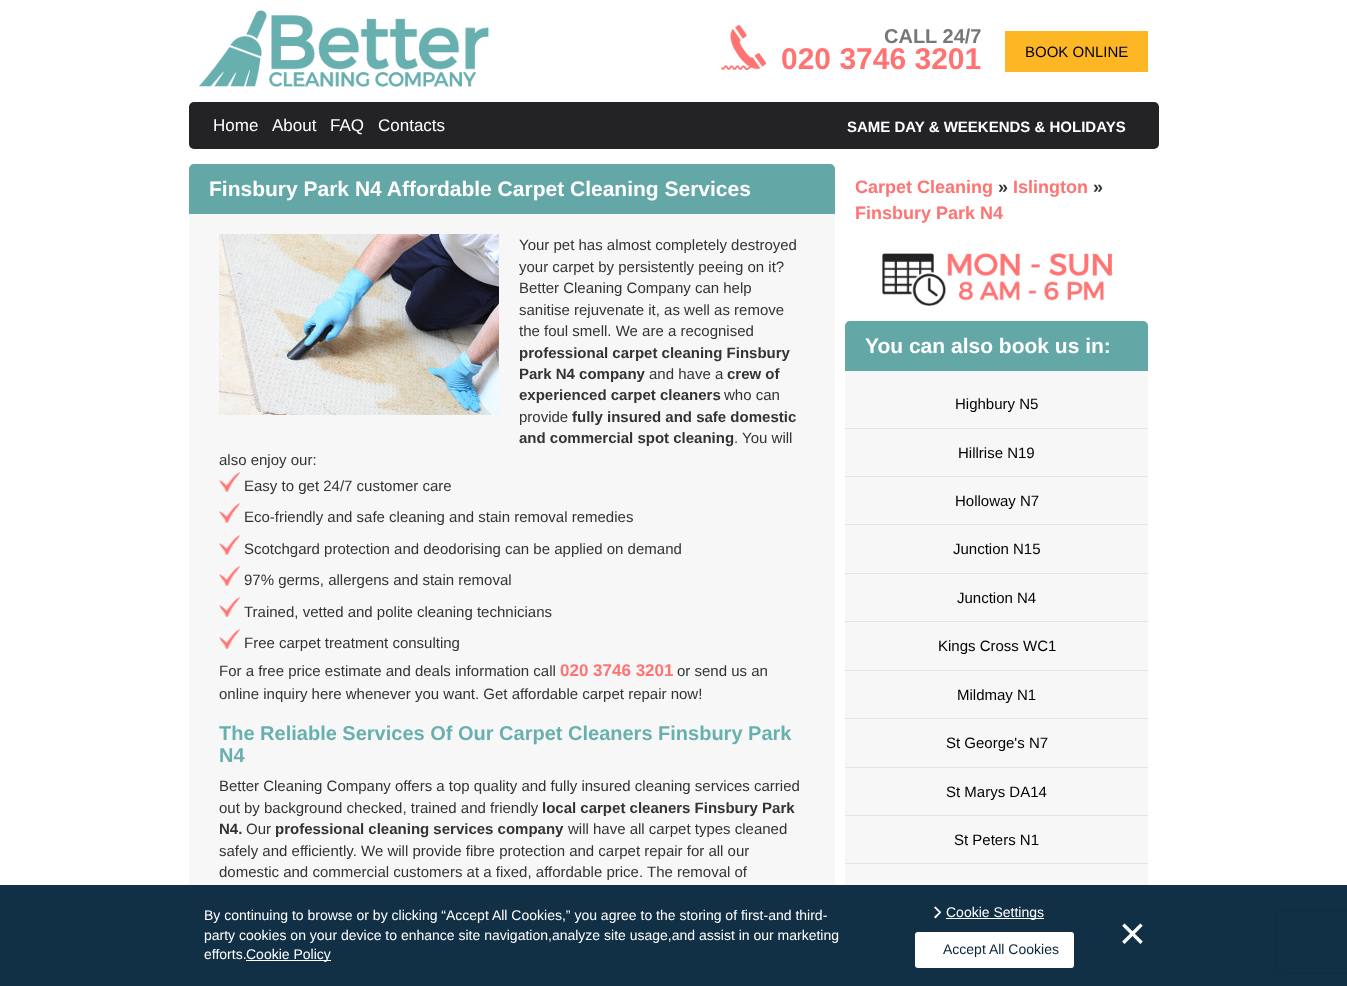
<!DOCTYPE html>
<meta charset="utf-8">
<style>body { margin: 0 } canvas { display: block }</style>
<canvas id="canvas" width="1347" height="986"></canvas>
<img id="img1" src="img_01.png" hidden>
<img id="img2" src="img_02.png" hidden>
<img id="img3" src="img_03.png" hidden>
<img id="img4" src="img_04.png" hidden>
<img id="img5" src="img_05.png" hidden>
<script>
window.onload = function () {
	const canvas = document.getElementById("canvas");
	const ctx = canvas.getContext("2d");
	ctx.miterLimit = 4;
	ctx.fontKerning = "normal";
	function txt(s, x, y) {
		ctx.fillText(s, x, y);
	}
	function fill(x, y, w, h) {
		ctx.fillRect(x, y, w, h);
	}
	function round(x, y, w, h, r) {
		ctx.beginPath();
		ctx.roundRect(x, y, w, h, r);
		ctx.fill();
	}
	function img(id, x, y, w, h) {
		ctx.drawImage(document.getElementById(id), x, y, w, h);
	}

	ctx.fillStyle = "#FFFFFF";
	fill(0, 0, 1347, 986);
	img("img1", 199, 10, 290, 77);
	img("img2", 721, 25, 45, 45);
	ctx.fillStyle = "#FDB725";
	fill(1005, 31, 143, 41);
	ctx.fillStyle = "#232326";
	round(189, 102, 970, 47, 5);
	ctx.fillStyle = "#F7F7F7";
	round(189, 164, 646, 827, 5);
	ctx.fillStyle = "#63A8A7";
	ctx.beginPath();
	ctx.roundRect(189, 164, 646, 50, [5, 5, 0, 0]);
	ctx.fill();
	img("img3", 219, 234, 280, 181);
	img("img4", 219, 472, 21, 20);
	img("img4", 219, 503, 21, 20);
	img("img4", 219, 535, 21, 20);
	img("img4", 219, 566, 21, 20);
	img("img4", 219, 597, 21, 20);
	img("img4", 219, 629, 21, 20);
	img("img5", 882, 253, 230, 53);
	ctx.fillStyle = "#F7F7F7";
	round(845, 321, 303, 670, 5);
	ctx.fillStyle = "#63A8A7";
	ctx.beginPath();
	ctx.roundRect(845, 321, 303, 50, [5, 5, 0, 0]);
	ctx.fill();
	ctx.fillStyle = "#E5E5E5";
	fill(845, 428, 303, 1);
	fill(845, 476, 303, 1);
	fill(845, 524, 303, 1);
	fill(845, 573, 303, 1);
	fill(845, 621, 303, 1);
	fill(845, 670, 303, 1);
	fill(845, 718, 303, 1);
	fill(845, 767, 303, 1);
	fill(845, 815, 303, 1);
	fill(845, 863, 303, 1);
	fill(845, 912, 303, 1);
	fill(845, 960, 303, 1);
	ctx.save();
	ctx.beginPath();
	ctx.moveTo(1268, 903);
	ctx.lineTo(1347, 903);
	ctx.lineTo(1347, 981);
	ctx.lineTo(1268, 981);
	ctx.closePath();
	ctx.moveTo(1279, 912);
	ctx.lineTo(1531, 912);
	ctx.bezierCurveTo(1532, 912, 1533, 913, 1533, 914);
	ctx.lineTo(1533, 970);
	ctx.bezierCurveTo(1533, 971, 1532, 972, 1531, 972);
	ctx.lineTo(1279, 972);
	ctx.bezierCurveTo(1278, 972, 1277, 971, 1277, 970);
	ctx.lineTo(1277, 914);
	ctx.bezierCurveTo(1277, 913, 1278, 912, 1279, 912);
	ctx.closePath();
	ctx.clip("evenodd");
	ctx.fillStyle = "#808080";
	ctx.filter = "blur(2.5px)";
	ctx.beginPath();
	ctx.roundRect(1277, 912, 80, 60, 2);
	ctx.fill();
	ctx.filter = "none";
	ctx.restore();
	ctx.fillStyle = "rgba(5, 37, 59, 0.95)";
	fill(0, 885, 1347, 101);
	ctx.fillStyle = "#FFFFFF";
	fill(246, 960, 85, 1);
	ctx.beginPath();
	ctx.moveTo(934, 907.5);
	ctx.lineTo(935.5, 906.5);
	ctx.lineTo(941, 912);
	ctx.lineTo(940, 913.5);
	ctx.closePath();
	ctx.fill();
	fill(946, 918, 98, 1);
	ctx.beginPath();
	ctx.moveTo(940, 911.5);
	ctx.lineTo(941, 912.5);
	ctx.lineTo(935.5, 918.5);
	ctx.lineTo(934, 917);
	ctx.closePath();
	ctx.fill();
	round(915, 932, 159, 36, 3);
	ctx.font = "bold 20px Arimo";
	ctx.fillStyle = "#777777";
	txt("CALL 24/7", 884, 43);
	ctx.font = "bold 30px Arimo";
	ctx.fillStyle = "#FF7373";
	txt("020 3746 3201", 781, 69);
	ctx.font = "15px Liberation Sans";
	ctx.fillStyle = "#000000";
	txt("BOOK ONLINE", 1025, 57);
	ctx.font = "17px Liberation Sans";
	ctx.fillStyle = "#FFFFFF";
	txt("Home", 213, 131);
	txt("About", 272, 131);
	txt("FAQ", 330, 131);
	txt("Contacts", 378, 131);
	ctx.font = "bold 15px Arimo";
	txt("SAME DAY & WEEKENDS & HOLIDAYS", 847, 132);
	ctx.font = "bold 21px Arimo";
	txt("Finsbury Park N4 Affordable Carpet Cleaning Services", 209, 196);
	ctx.font = "15px Liberation Sans";
	ctx.fillStyle = "#333333";
	txt("Your pet has almost completely destroyed", 519, 250);
	txt("your carpet by persistently peeing on it?", 519, 272);
	txt("Better Cleaning Company can help", 519, 293);
	txt("sanitise rejuvenate it, as well as remove", 519, 315);
	txt("the foul smell. We are a recognised", 519, 336);
	ctx.font = "bold 15px Liberation Sans";
	txt("professional carpet cleaning Finsbury", 519, 358);
	txt("Park N4 company", 519, 379);
	ctx.font = "15px Liberation Sans";
	txt("and have a", 649, 379);
	ctx.font = "bold 15px Liberation Sans";
	txt("crew of", 727, 379);
	txt("experienced carpet cleaners", 519, 400);
	ctx.font = "15px Liberation Sans";
	txt("who can", 724, 400);
	txt("provide", 519, 422);
	ctx.font = "bold 15px Liberation Sans";
	txt("fully insured and safe domestic", 572, 422);
	txt("and commercial spot cleaning", 519, 443);
	ctx.font = "15px Liberation Sans";
	txt(". You will", 734, 443);
	txt("also enjoy our:", 219, 465);
	txt("Easy to get 24/7 customer care", 244, 491);
	txt("Eco-friendly and safe cleaning and stain removal remedies", 244, 522);
	txt("Scotchgard protection and deodorising can be applied on demand", 244, 554);
	txt("97% germs, allergens and stain removal", 244, 585);
	txt("Trained, vetted and polite cleaning technicians", 244, 617);
	txt("Free carpet treatment consulting", 244, 648);
	txt("For a free price estimate and deals information call", 219, 676);
	ctx.font = "bold 17px Liberation Sans";
	ctx.fillStyle = "#FF7373";
	txt("020 3746 3201", 560, 676);
	ctx.font = "15px Liberation Sans";
	ctx.fillStyle = "#333333";
	txt("or send us an", 677, 676);
	txt("online inquiry here whenever you want. Get affordable carpet repair now!", 219, 699);
	ctx.font = "bold 20px Liberation Sans";
	ctx.fillStyle = "#68B0AF";
	txt("The Reliable Services Of Our Carpet Cleaners Finsbury Park", 219, 740);
	txt("N4", 219, 762);
	ctx.font = "15px Liberation Sans";
	ctx.fillStyle = "#333333";
	txt("Better Cleaning Company offers a top quality and fully insured cleaning services carried", 219, 791);
	txt("out by background checked, trained and friendly", 219, 813);
	ctx.font = "bold 15px Liberation Sans";
	txt("local carpet cleaners Finsbury Park", 542, 813);
	txt("N4.", 219, 834);
	ctx.font = "15px Liberation Sans";
	txt("Our", 246, 834);
	ctx.font = "bold 15px Liberation Sans";
	txt("professional cleaning services company", 275, 834);
	ctx.font = "15px Liberation Sans";
	txt("will have all carpet types cleaned", 568, 834);
	txt("safely and efficiently. We will provide fibre protection and carpet repair for all our", 219, 856);
	txt("domestic and commercial customers at a fixed, affordable price. The removal of", 219, 877);
	ctx.font = "bold 18px Liberation Sans";
	ctx.fillStyle = "#FF7373";
	txt("Carpet Cleaning", 855, 193);
	ctx.fillStyle = "#333333";
	txt("»", 998, 193);
	ctx.fillStyle = "#FF7373";
	txt("Islington", 1013, 193);
	ctx.fillStyle = "#333333";
	txt("»", 1093, 193);
	ctx.fillStyle = "#FF7373";
	txt("Finsbury Park N4", 855, 219);
	ctx.font = "bold 21px Arimo";
	ctx.fillStyle = "#FFFFFF";
	txt("You can also book us in:", 865, 353);
	ctx.font = "15px Liberation Sans";
	ctx.fillStyle = "#000000";
	txt("Highbury N5", 955, 409);
	txt("Hillrise N19", 958, 458);
	txt("Holloway N7", 955, 506);
	txt("Junction N15", 953, 554);
	txt("Junction N4", 957, 603);
	txt("Kings Cross WC1", 938, 651);
	txt("Mildmay N1", 957, 700);
	txt("St George's N7", 946, 748);
	txt("St Marys DA14", 946, 797);
	txt("St Peters N1", 954, 845);
	ctx.font = "14px Liberation Sans";
	ctx.fillStyle = "#FFFFFF";
	txt("By continuing to browse or by clicking “Accept All Cookies,” you agree to the storing of first-and third-", 204, 920);
	txt("party cookies on your device to enhance site navigation,analyze site usage,and assist in our marketing", 204, 940);
	txt("efforts.", 204, 959);
	txt("Cookie Policy", 246, 959);
	txt("Cookie Settings", 946, 917);
	ctx.font = "46px Liberation Sans";
	txt("×", 1119, 949);
	ctx.font = "14px Liberation Sans";
	ctx.fillStyle = "#05253B";
	txt("Accept All Cookies", 943, 954);
};
</script>
